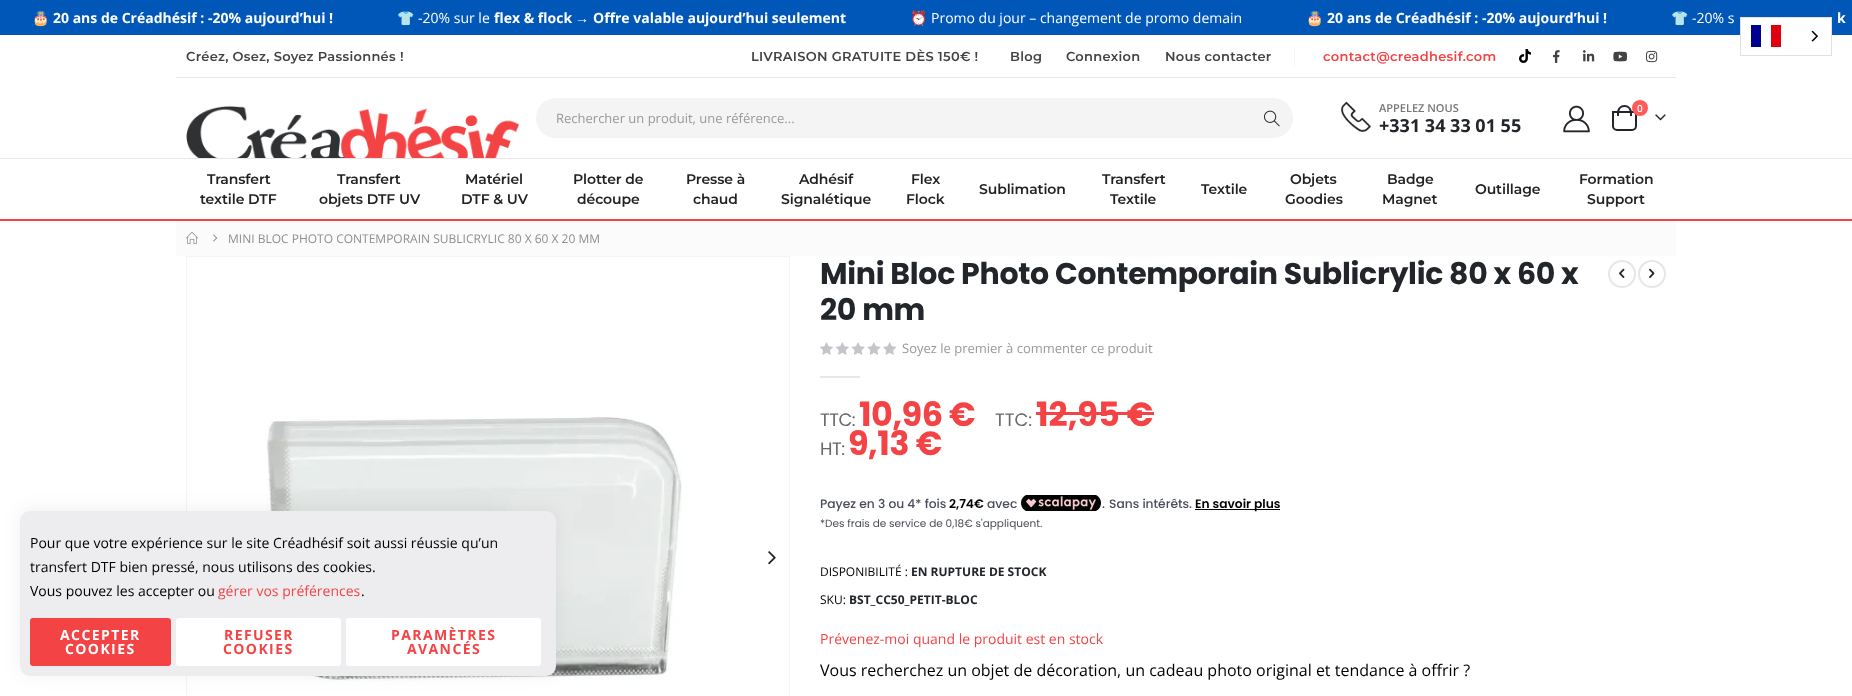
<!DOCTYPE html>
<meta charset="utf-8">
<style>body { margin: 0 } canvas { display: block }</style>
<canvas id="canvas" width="1852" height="696"></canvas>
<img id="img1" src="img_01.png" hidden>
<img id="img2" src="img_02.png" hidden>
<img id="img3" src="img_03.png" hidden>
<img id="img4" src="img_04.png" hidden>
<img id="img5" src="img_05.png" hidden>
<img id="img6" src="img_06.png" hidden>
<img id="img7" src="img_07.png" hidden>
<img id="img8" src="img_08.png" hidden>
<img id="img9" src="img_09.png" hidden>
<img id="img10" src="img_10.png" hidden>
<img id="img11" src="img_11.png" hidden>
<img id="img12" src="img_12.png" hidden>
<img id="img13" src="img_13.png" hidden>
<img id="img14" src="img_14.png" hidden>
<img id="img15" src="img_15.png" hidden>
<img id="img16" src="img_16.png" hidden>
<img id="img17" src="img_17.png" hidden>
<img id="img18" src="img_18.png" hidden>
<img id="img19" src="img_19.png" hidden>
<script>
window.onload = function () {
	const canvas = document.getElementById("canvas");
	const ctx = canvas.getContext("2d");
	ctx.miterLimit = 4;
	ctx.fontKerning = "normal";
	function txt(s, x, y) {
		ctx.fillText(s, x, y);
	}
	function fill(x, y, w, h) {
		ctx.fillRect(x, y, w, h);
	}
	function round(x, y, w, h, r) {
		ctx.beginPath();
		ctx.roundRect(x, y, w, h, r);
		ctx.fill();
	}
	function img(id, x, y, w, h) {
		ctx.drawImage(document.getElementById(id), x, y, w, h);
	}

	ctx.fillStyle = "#FFFFFF";
	fill(0, 0, 1852, 696);
	ctx.fillStyle = "#0057B8";
	fill(0, 0, 1852, 35);
	ctx.fillStyle = "#FFFFFF";
	fill(1741, 18, 90, 17);
	ctx.strokeStyle = "#E0E0E0";
	ctx.strokeRect(1740.5, 17.5, 91, 38);
	ctx.fillStyle = "#000091";
	fill(1751, 25, 10, 22);
	ctx.fillStyle = "#E1000F";
	fill(1771, 25, 10, 22);
	img("img1", 1811, 30, 7, 12);
	ctx.fillStyle = "#F44345";
	fill(0, 219, 1852, 2);
	ctx.fillStyle = "#F5F5F5";
	fill(1294, 46, 1, 20);
	img("img2", 1519, 49, 12, 14);
	img("img3", 1553, 50, 7, 13);
	img("img4", 1583, 50, 12, 12);
	img("img5", 1613, 51, 15, 11);
	img("img6", 1646, 50, 12, 13);
	ctx.fillStyle = "#E7E7E7";
	fill(0, 158, 1852, 1);
	fill(176, 77, 1500, 1);
	img("img7", 186, 106, 333, 52);
	ctx.fillStyle = "#F4F4F4";
	round(536, 98, 757, 40, 20);
	img("img8", 1264, 110, 16, 17);
	img("img9", 1341, 101, 30, 31);
	img("img10", 1563, 105, 27, 28);
	ctx.beginPath();
	ctx.roundRect(1613, 112, 23, 18, [0, 0, 4, 4]);
	ctx.strokeStyle = "#222529";
	ctx.lineWidth = 2;
	ctx.stroke();
	ctx.fillStyle = "#222529";
	ctx.beginPath();
	ctx.moveTo(1624.5, 105);
	ctx.bezierCurveTo(1628.5, 105, 1632, 108.5, 1632, 112.5);
	ctx.lineTo(1632, 116);
	ctx.lineTo(1617, 116);
	ctx.lineTo(1617, 112.5);
	ctx.bezierCurveTo(1617, 108.5, 1620.5, 105, 1624.5, 105);
	ctx.closePath();
	ctx.moveTo(1624.5, 107);
	ctx.bezierCurveTo(1630, 107, 1630, 112, 1630, 116);
	ctx.lineTo(1619, 116);
	ctx.bezierCurveTo(1619, 112, 1619, 107, 1624.5, 107);
	ctx.closePath();
	ctx.fill("evenodd");
	ctx.fillStyle = "#FF5B5B";
	ctx.beginPath();
	ctx.arc(1640, 108, 8, 0, Math.PI * 2);
	ctx.fill();
	img("img11", 1655, 114, 11, 7);
	ctx.fillStyle = "#FBFBFB";
	fill(176, 221, 1500, 35);
	img("img12", 186, 231, 12, 13);
	img("img13", 213, 234, 5, 8);
	ctx.strokeStyle = "#F4F4F4";
	ctx.lineWidth = 1;
	ctx.strokeRect(186.5, 256.5, 603, 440);
	img("img14", 266, 417, 416, 264);
	img("img15", 768, 551, 8, 14);
	ctx.beginPath();
	ctx.arc(1622, 274, 13, 0, Math.PI * 2);
	ctx.strokeStyle = "#E7E7E7";
	ctx.lineWidth = 2;
	ctx.stroke();
	img("img16", 1619, 268, 6, 10);
	ctx.beginPath();
	ctx.arc(1652, 274, 13, 0, Math.PI * 2);
	ctx.stroke();
	img("img17", 1649, 268, 6, 10);
	img("img18", 820, 342, 76, 13);
	ctx.fillStyle = "#E7E7E7";
	fill(820, 376, 40, 2);
	ctx.fillStyle = "#F44345";
	fill(1036, 412, 118, 3);
	img("img19", 1021, 495, 80, 16);
	ctx.fillStyle = "#000000";
	fill(1195, 509, 85, 1);
	ctx.fillStyle = "rgba(0, 0, 0, 0.06)";
	ctx.filter = "blur(9px)";
	ctx.beginPath();
	ctx.roundRect(20, 509, 536, 165, 10);
	ctx.fill();
	ctx.filter = "none";
	ctx.fillStyle = "#EDEDEF";
	round(20, 511, 536, 165, 10);
	ctx.fillStyle = "#F44345";
	round(30, 618, 141, 48, 3);
	ctx.fillStyle = "#FFFFFF";
	round(176, 618, 165, 48, 3);
	round(346, 618, 195, 48, 3);
	ctx.font = "14px Noto Color Emoji";
	txt("🎂", 32, 23);
	ctx.font = "bold 14px Open Sans";
	txt("20 ans de Créadhésif : -20% aujourd’hui !", 53, 23);
	ctx.font = "14px Noto Color Emoji";
	txt("👕", 397, 23);
	ctx.font = "14px Open Sans";
	txt("-20% sur le", 418, 23);
	ctx.font = "bold 14px Open Sans";
	txt("flex & flock", 494, 23);
	ctx.font = "bold 14px Liberation Serif";
	txt("→", 575, 23);
	ctx.font = "bold 14px Open Sans";
	txt("Offre valable aujourd’hui seulement", 593, 23);
	ctx.font = "14px Noto Color Emoji";
	txt("⏰", 910, 23);
	ctx.font = "14px Open Sans";
	txt("Promo du jour – changement de promo demain", 931, 23);
	ctx.font = "14px Noto Color Emoji";
	txt("🎂", 1306, 23);
	ctx.font = "bold 14px Open Sans";
	txt("20 ans de Créadhésif : -20% aujourd’hui !", 1327, 23);
	ctx.font = "14px Noto Color Emoji";
	txt("👕", 1671, 23);
	ctx.font = "14px Open Sans";
	txt("-20% s", 1692, 23);
	ctx.font = "bold 14px Open Sans";
	txt("k", 1837, 23);
	ctx.letterSpacing = "0.3px";
	ctx.font = "600 13px Montserrat";
	ctx.fillStyle = "#424242";
	txt("Créez, Osez, Soyez Passionnés !", 186, 61);
	txt("LIVRAISON GRATUITE DÈS 150€ !", 751, 61);
	txt("Blog", 1010, 61);
	txt("Connexion", 1066, 61);
	txt("Nous contacter", 1165, 61);
	ctx.fillStyle = "#F44345";
	txt("contact@creadhesif.com", 1323, 61);
	ctx.letterSpacing = "0px";
	ctx.font = "13px Open Sans";
	ctx.fillStyle = "#999999";
	txt("Rechercher un produit, une référence...", 556, 123);
	ctx.font = "600 11px Open Sans";
	ctx.fillStyle = "#777777";
	txt("APPELEZ NOUS", 1379, 112);
	ctx.font = "bold 18px Open Sans";
	ctx.fillStyle = "#222529";
	txt("+331 34 33 01 55", 1379, 132);
	ctx.font = "600 10px Open Sans";
	ctx.fillStyle = "#FFFFFF";
	txt("0", 1637, 112);
	ctx.letterSpacing = "-0.1px";
	ctx.font = "600 14px Montserrat";
	ctx.fillStyle = "#222222";
	txt("Transfert", 207, 184);
	txt("textile DTF", 200, 204);
	txt("Transfert", 337, 184);
	txt("objets DTF UV", 319, 204);
	txt("Matériel", 465, 184);
	txt("DTF & UV", 461, 204);
	txt("Plotter de", 573, 184);
	txt("découpe", 577, 204);
	txt("Presse à", 686, 184);
	txt("chaud", 693, 204);
	txt("Adhésif", 799, 184);
	txt("Signalétique", 781, 204);
	txt("Flex", 911, 184);
	txt("Flock", 906, 204);
	txt("Sublimation", 979, 194);
	txt("Transfert", 1102, 184);
	txt("Textile", 1110, 204);
	txt("Textile", 1201, 194);
	txt("Objets", 1290, 184);
	txt("Goodies", 1285, 204);
	txt("Badge", 1387, 184);
	txt("Magnet", 1382, 204);
	txt("Outillage", 1475, 194);
	txt("Formation", 1579, 184);
	txt("Support", 1587, 204);
	ctx.letterSpacing = "0px";
	ctx.font = "12px Open Sans";
	ctx.fillStyle = "#8E8E8E";
	txt("MINI BLOC PHOTO CONTEMPORAIN SUBLICRYLIC 80 X 60 X 20 MM", 228, 243);
	ctx.letterSpacing = "-0.3px";
	ctx.font = "bold 30px Poppins";
	ctx.fillStyle = "#222529";
	txt("Mini Bloc Photo Contemporain Sublicrylic 80 x 60 x", 820, 284);
	txt("20 mm", 820, 320);
	ctx.letterSpacing = "0px";
	ctx.font = "13px Open Sans";
	ctx.fillStyle = "#999999";
	txt("Soyez le premier à commenter ce produit", 902, 353);
	ctx.letterSpacing = "-0.5px";
	ctx.font = "18px Poppins";
	ctx.fillStyle = "#69696B";
	txt("TTC:", 820, 426);
	ctx.font = "bold 33.5px Poppins";
	ctx.fillStyle = "#F44345";
	txt("10,96 €", 859, 426);
	ctx.font = "18px Poppins";
	ctx.fillStyle = "#69696B";
	txt("HT:", 820, 455);
	ctx.font = "bold 33.5px Poppins";
	ctx.fillStyle = "#F44345";
	txt("9,13 €", 848, 455);
	ctx.letterSpacing = "0px";
	ctx.font = "18px Poppins";
	ctx.fillStyle = "#69696B";
	txt("TTC:", 995, 426);
	ctx.font = "bold 33.5px Poppins";
	ctx.fillStyle = "#F44345";
	txt("12,95 €", 1036, 426);
	ctx.font = "500 12.25px Poppins";
	ctx.fillStyle = "#4A4D5A";
	txt("Payez en 3 ou 4* fois", 820, 508);
	ctx.font = "600 12.25px Poppins";
	ctx.fillStyle = "#000000";
	txt("2,74€", 949, 508);
	ctx.font = "500 12.25px Poppins";
	ctx.fillStyle = "#4A4D5A";
	txt("avec", 987, 508);
	txt(".", 1102, 508);
	txt("Sans intérêts.", 1109, 508);
	ctx.font = "600 12.25px Poppins";
	ctx.fillStyle = "#000000";
	txt("En savoir plus", 1195, 508);
	ctx.font = "10.5px Poppins";
	ctx.fillStyle = "#4A4D5A";
	txt("*Des frais de service de 0,18€ s'appliquent.", 820, 527);
	ctx.font = "12px Open Sans";
	ctx.fillStyle = "#000000";
	txt("DISPONIBILITÉ :", 820, 576);
	ctx.font = "bold 12px Open Sans";
	ctx.fillStyle = "#222529";
	txt("EN RUPTURE DE STOCK", 911, 576);
	ctx.font = "12px Open Sans";
	ctx.fillStyle = "#000000";
	txt("SKU:", 820, 604);
	ctx.font = "bold 12px Open Sans";
	ctx.fillStyle = "#222529";
	txt("BST_CC50_PETIT-BLOC", 849, 604);
	ctx.font = "14px Open Sans";
	ctx.fillStyle = "#F44345";
	txt("Prévenez-moi quand le produit est en stock", 820, 644);
	ctx.font = "16px Open Sans";
	ctx.fillStyle = "#000000";
	txt("Vous recherchez un objet de décoration, un cadeau photo original et tendance à offrir ?", 820, 676);
	ctx.font = "14px Open Sans";
	txt("Pour que votre expérience sur le site Créadhésif soit aussi réussie qu’un", 30, 548);
	txt("transfert DTF bien pressé, nous utilisons des cookies.", 30, 572);
	txt("Vous pouvez les accepter ou", 30, 596);
	ctx.fillStyle = "#F44345";
	txt("gérer vos préférences", 218, 596);
	ctx.fillStyle = "#000000";
	txt(".", 361, 596);
	ctx.letterSpacing = "1.4px";
	ctx.font = "bold 14px Open Sans";
	ctx.fillStyle = "#FFFFFF";
	txt("ACCEPTER", 60, 640);
	txt("COOKIES", 65, 654);
	ctx.fillStyle = "#F44345";
	txt("REFUSER", 224, 640);
	txt("COOKIES", 223, 654);
	txt("PARAMÈTRES", 391, 640);
	txt("AVANCÉS", 407, 654);
};
</script>
